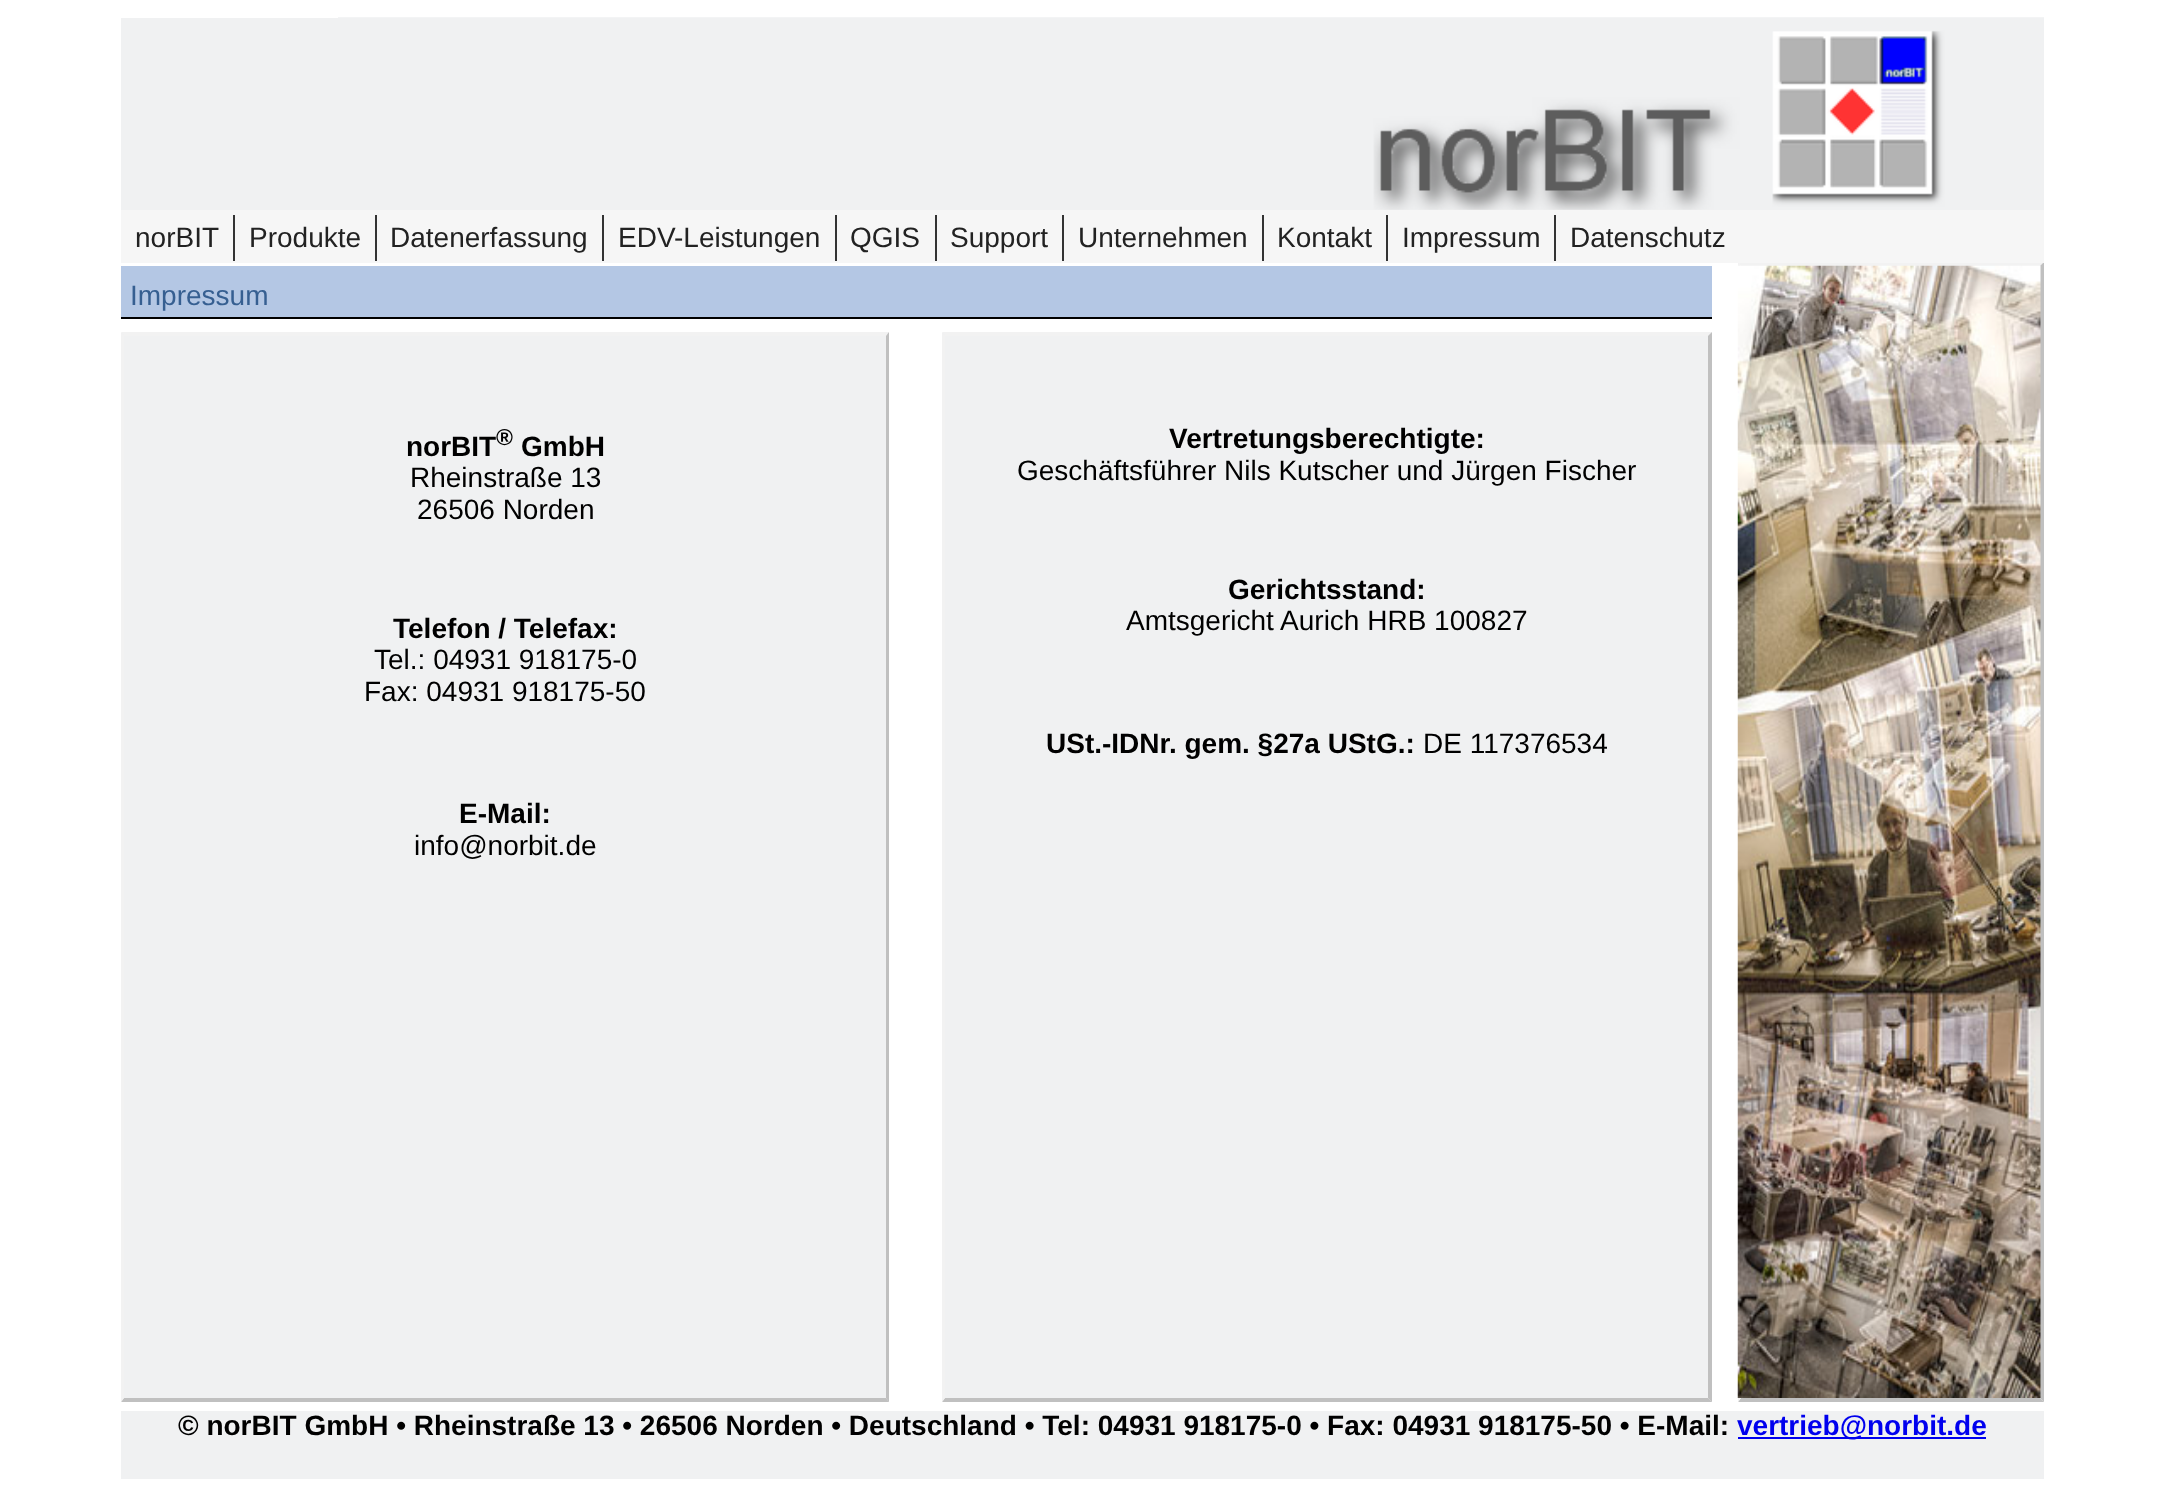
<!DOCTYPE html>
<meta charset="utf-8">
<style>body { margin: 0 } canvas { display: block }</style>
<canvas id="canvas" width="2164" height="1506"></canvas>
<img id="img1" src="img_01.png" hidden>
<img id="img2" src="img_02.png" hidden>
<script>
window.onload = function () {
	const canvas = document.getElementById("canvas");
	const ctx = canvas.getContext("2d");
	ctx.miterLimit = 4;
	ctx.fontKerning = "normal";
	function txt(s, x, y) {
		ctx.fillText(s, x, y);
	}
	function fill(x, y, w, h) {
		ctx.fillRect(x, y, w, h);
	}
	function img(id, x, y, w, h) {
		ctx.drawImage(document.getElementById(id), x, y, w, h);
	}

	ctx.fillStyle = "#FFFFFF";
	fill(0, 0, 2164, 1506);
	ctx.fillStyle = "#F0F1F2";
	fill(121, 18, 1923, 192);
	img("img1", 338, 17, 1706, 193);
	ctx.fillStyle = "#F2F2F2";
	ctx.beginPath();
	ctx.moveTo(1738, 262);
	ctx.lineTo(2044, 262);
	ctx.lineTo(2040, 266);
	ctx.lineTo(1741, 266);
	ctx.closePath();
	ctx.fill();
	ctx.fillStyle = "#C0C0C0";
	ctx.beginPath();
	ctx.moveTo(2044, 262);
	ctx.lineTo(2044, 1402);
	ctx.lineTo(2040, 1398);
	ctx.lineTo(2040, 266);
	ctx.closePath();
	ctx.fill();
	ctx.beginPath();
	ctx.moveTo(2044, 1402);
	ctx.lineTo(1738, 1402);
	ctx.lineTo(1741, 1398);
	ctx.lineTo(2040, 1398);
	ctx.closePath();
	ctx.fill();
	ctx.fillStyle = "#F2F2F2";
	ctx.beginPath();
	ctx.moveTo(1738, 1402);
	ctx.lineTo(1738, 262);
	ctx.lineTo(1741, 266);
	ctx.lineTo(1741, 1398);
	ctx.closePath();
	ctx.fill();
	ctx.fillStyle = "#F6F6F6";
	fill(121, 210, 1923, 53);
	ctx.fillStyle = "#333333";
	fill(233, 215, 2, 46);
	fill(375, 215, 2, 46);
	fill(602, 215, 2, 46);
	fill(835, 215, 2, 46);
	fill(935, 215, 2, 46);
	fill(1062, 215, 2, 46);
	fill(1262, 215, 2, 46);
	fill(1386, 215, 2, 46);
	fill(1554, 215, 2, 46);
	ctx.fillStyle = "#B4C7E4";
	fill(121, 266, 1591, 51);
	ctx.fillStyle = "#000000";
	fill(121, 317, 1591, 2);
	ctx.fillStyle = "#F0F1F2";
	fill(121, 333, 768, 1069);
	ctx.fillStyle = "#F2F2F2";
	ctx.beginPath();
	ctx.moveTo(121, 332);
	ctx.lineTo(889, 332);
	ctx.lineTo(886, 336);
	ctx.lineTo(124, 336);
	ctx.closePath();
	ctx.fill();
	ctx.fillStyle = "#C0C0C0";
	ctx.beginPath();
	ctx.moveTo(889, 332);
	ctx.lineTo(889, 1402);
	ctx.lineTo(886, 1398);
	ctx.lineTo(886, 336);
	ctx.closePath();
	ctx.fill();
	ctx.beginPath();
	ctx.moveTo(889, 1402);
	ctx.lineTo(121, 1402);
	ctx.lineTo(124, 1398);
	ctx.lineTo(886, 1398);
	ctx.closePath();
	ctx.fill();
	ctx.fillStyle = "#F2F2F2";
	ctx.beginPath();
	ctx.moveTo(121, 1402);
	ctx.lineTo(121, 332);
	ctx.lineTo(124, 336);
	ctx.lineTo(124, 1398);
	ctx.closePath();
	ctx.fill();
	ctx.fillStyle = "#F0F1F2";
	fill(942, 333, 770, 1069);
	ctx.fillStyle = "#F2F2F2";
	ctx.beginPath();
	ctx.moveTo(942, 332);
	ctx.lineTo(1712, 332);
	ctx.lineTo(1708, 336);
	ctx.lineTo(945, 336);
	ctx.closePath();
	ctx.fill();
	ctx.fillStyle = "#C0C0C0";
	ctx.beginPath();
	ctx.moveTo(1712, 332);
	ctx.lineTo(1712, 1402);
	ctx.lineTo(1708, 1398);
	ctx.lineTo(1708, 336);
	ctx.closePath();
	ctx.fill();
	ctx.beginPath();
	ctx.moveTo(1712, 1402);
	ctx.lineTo(942, 1402);
	ctx.lineTo(945, 1398);
	ctx.lineTo(1708, 1398);
	ctx.closePath();
	ctx.fill();
	ctx.fillStyle = "#F2F2F2";
	ctx.beginPath();
	ctx.moveTo(942, 1402);
	ctx.lineTo(942, 332);
	ctx.lineTo(945, 336);
	ctx.lineTo(945, 1398);
	ctx.closePath();
	ctx.fill();
	img("img2", 1737, 265, 304, 1133);
	ctx.fillStyle = "#F0F1F2";
	fill(121, 1411, 1923, 68);
	ctx.fillStyle = "#0000EE";
	fill(1738, 1437, 248, 2);
	ctx.font = "28px Liberation Sans";
	ctx.fillStyle = "#222222";
	txt("norBIT", 135, 247);
	txt("Produkte", 249, 247);
	txt("Datenerfassung", 390, 247);
	txt("EDV-Leistungen", 618, 247);
	txt("QGIS", 850, 247);
	txt("Support", 950, 247);
	txt("Unternehmen", 1078, 247);
	txt("Kontakt", 1277, 247);
	txt("Impressum", 1402, 247);
	txt("Datenschutz", 1570, 247);
	ctx.fillStyle = "#365F91";
	txt("Impressum", 130, 305);
	ctx.font = "bold 28px Liberation Sans";
	ctx.fillStyle = "#000000";
	txt("norBIT", 406, 456);
	ctx.font = "bold 23px Liberation Sans";
	txt("®", 496, 445);
	ctx.font = "bold 28px Liberation Sans";
	txt("GmbH", 521, 456);
	ctx.font = "28px Liberation Sans";
	txt("Rheinstraße 13", 410, 487);
	txt("26506 Norden", 417, 519);
	ctx.font = "bold 28px Liberation Sans";
	txt("Telefon / Telefax:", 393, 638);
	ctx.font = "28px Liberation Sans";
	txt("Tel.: 04931 918175-0", 374, 669);
	txt("Fax: 04931 918175-50", 364, 701);
	ctx.font = "bold 28px Liberation Sans";
	txt("E-Mail:", 459, 823);
	ctx.font = "28px Liberation Sans";
	txt("info@norbit.de", 414, 855);
	ctx.font = "bold 28px Liberation Sans";
	txt("Vertretungsberechtigte:", 1169, 448);
	ctx.font = "28px Liberation Sans";
	txt("Geschäftsführer Nils Kutscher und Jürgen Fischer", 1017, 480);
	ctx.font = "bold 28px Liberation Sans";
	txt("Gerichtsstand:", 1228, 599);
	ctx.font = "28px Liberation Sans";
	txt("Amtsgericht Aurich HRB 100827", 1126, 630);
	ctx.font = "bold 28px Liberation Sans";
	txt("USt.-IDNr. gem. §27a UStG.:", 1046, 753);
	ctx.font = "28px Liberation Sans";
	txt("DE 117376534", 1423, 753);
	ctx.font = "bold 28px Liberation Sans";
	txt("© norBIT GmbH • Rheinstraße 13 • 26506 Norden • Deutschland • Tel: 04931 918175-0 • Fax: 04931 918175-50 • E-Mail:", 178, 1435);
	ctx.fillStyle = "#0000EE";
	txt("vertrieb@norbit.de", 1737, 1435);
};
</script>
